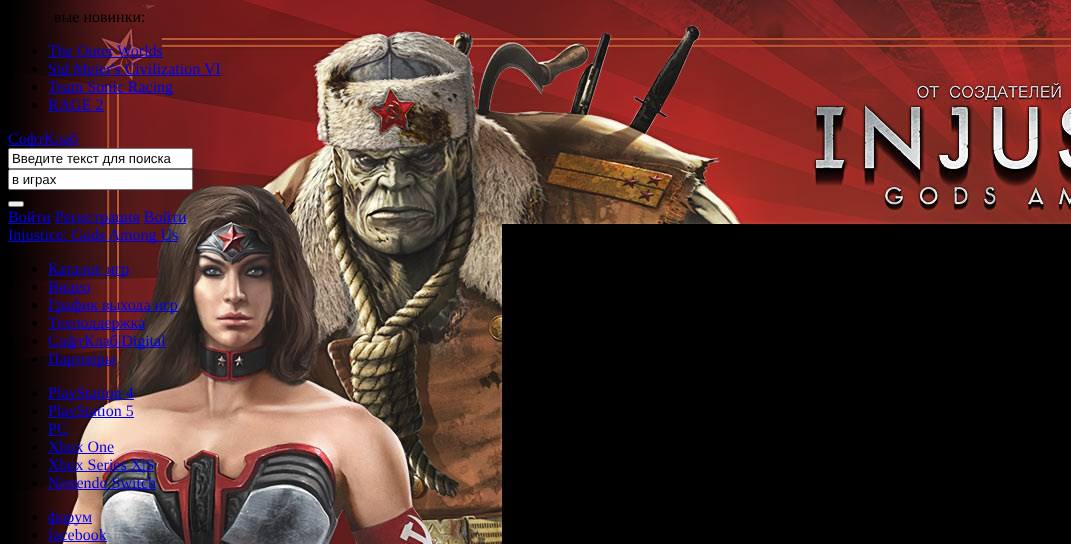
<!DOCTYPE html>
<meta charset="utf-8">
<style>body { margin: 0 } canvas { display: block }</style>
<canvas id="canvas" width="1071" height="544"></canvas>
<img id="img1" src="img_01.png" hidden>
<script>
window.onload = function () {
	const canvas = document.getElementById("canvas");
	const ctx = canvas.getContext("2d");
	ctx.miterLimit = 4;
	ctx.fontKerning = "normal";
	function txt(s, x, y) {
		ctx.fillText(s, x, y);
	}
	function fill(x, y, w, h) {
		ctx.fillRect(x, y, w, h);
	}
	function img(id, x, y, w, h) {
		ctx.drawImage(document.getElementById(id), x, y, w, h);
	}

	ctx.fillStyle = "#000000";
	fill(0, 0, 1071, 544);
	img("img1", 12, 0, 1059, 544);
	ctx.beginPath();
	ctx.arc(34.5, 51.5, 2.5, 0, Math.PI * 2);
	ctx.fill();
	ctx.fillStyle = "#0000EE";
	fill(48, 57, 115, 1);
	ctx.fillStyle = "#000000";
	ctx.beginPath();
	ctx.arc(34.5, 69.5, 2.5, 0, Math.PI * 2);
	ctx.fill();
	ctx.fillStyle = "#0000EE";
	fill(48, 75, 173, 1);
	ctx.fillStyle = "#000000";
	ctx.beginPath();
	ctx.arc(34.5, 87.5, 2.5, 0, Math.PI * 2);
	ctx.fill();
	ctx.fillStyle = "#0000EE";
	fill(48, 93, 125, 1);
	ctx.fillStyle = "#000000";
	ctx.beginPath();
	ctx.arc(34.5, 105.5, 2.5, 0, Math.PI * 2);
	ctx.fill();
	ctx.fillStyle = "#0000EE";
	fill(48, 111, 56, 1);
	fill(8, 145, 70, 1);
	ctx.fillStyle = "#FFFFFF";
	ctx.beginPath();
	ctx.roundRect(8.5, 148.5, 184, 20, 1.5);
	ctx.fill();
	ctx.strokeStyle = "#767676";
	ctx.stroke();
	ctx.beginPath();
	ctx.roundRect(8.5, 169.5, 184, 20, 1.5);
	ctx.fill();
	ctx.stroke();
	ctx.fillStyle = "#EFEFEF";
	ctx.beginPath();
	ctx.roundRect(8.5, 201.5, 15, 5, 1.5);
	ctx.fill();
	ctx.stroke();
	ctx.fillStyle = "#0000EE";
	fill(8, 223, 43, 1);
	fill(55, 223, 85, 1);
	fill(144, 223, 42, 1);
	fill(8, 241, 170, 1);
	ctx.fillStyle = "#000000";
	ctx.beginPath();
	ctx.arc(34.5, 269.5, 2.5, 0, Math.PI * 2);
	ctx.fill();
	ctx.fillStyle = "#0000EE";
	fill(48, 275, 81, 1);
	ctx.fillStyle = "#000000";
	ctx.beginPath();
	ctx.arc(34.5, 287.5, 2.5, 0, Math.PI * 2);
	ctx.fill();
	ctx.fillStyle = "#0000EE";
	fill(48, 293, 42, 1);
	ctx.fillStyle = "#000000";
	ctx.beginPath();
	ctx.arc(34.5, 305.5, 2.5, 0, Math.PI * 2);
	ctx.fill();
	ctx.fillStyle = "#0000EE";
	fill(48, 311, 130, 1);
	ctx.fillStyle = "#000000";
	ctx.beginPath();
	ctx.arc(34.5, 323.5, 2.5, 0, Math.PI * 2);
	ctx.fill();
	ctx.fillStyle = "#0000EE";
	fill(48, 329, 97, 1);
	ctx.fillStyle = "#000000";
	ctx.beginPath();
	ctx.arc(34.5, 341.5, 2.5, 0, Math.PI * 2);
	ctx.fill();
	ctx.fillStyle = "#0000EE";
	fill(48, 347, 118, 1);
	ctx.fillStyle = "#000000";
	ctx.beginPath();
	ctx.arc(34.5, 359.5, 2.5, 0, Math.PI * 2);
	ctx.fill();
	ctx.fillStyle = "#0000EE";
	fill(48, 365, 68, 1);
	ctx.fillStyle = "#000000";
	ctx.beginPath();
	ctx.arc(34.5, 393.5, 2.5, 0, Math.PI * 2);
	ctx.fill();
	ctx.fillStyle = "#0000EE";
	fill(48, 399, 86, 1);
	ctx.fillStyle = "#000000";
	ctx.beginPath();
	ctx.arc(34.5, 411.5, 2.5, 0, Math.PI * 2);
	ctx.fill();
	ctx.fillStyle = "#0000EE";
	fill(48, 417, 86, 1);
	ctx.fillStyle = "#000000";
	ctx.beginPath();
	ctx.arc(34.5, 429.5, 2.5, 0, Math.PI * 2);
	ctx.fill();
	ctx.fillStyle = "#0000EE";
	fill(48, 435, 20, 1);
	ctx.fillStyle = "#000000";
	ctx.beginPath();
	ctx.arc(34.5, 447.5, 2.5, 0, Math.PI * 2);
	ctx.fill();
	ctx.fillStyle = "#0000EE";
	fill(48, 453, 66, 1);
	ctx.fillStyle = "#000000";
	ctx.beginPath();
	ctx.arc(34.5, 465.5, 2.5, 0, Math.PI * 2);
	ctx.fill();
	ctx.fillStyle = "#0000EE";
	fill(48, 471, 106, 1);
	ctx.fillStyle = "#000000";
	ctx.beginPath();
	ctx.arc(34.5, 483.5, 2.5, 0, Math.PI * 2);
	ctx.fill();
	ctx.fillStyle = "#0000EE";
	fill(48, 489, 108, 1);
	ctx.fillStyle = "#000000";
	ctx.beginPath();
	ctx.arc(34.5, 517.5, 2.5, 0, Math.PI * 2);
	ctx.fill();
	ctx.fillStyle = "#0000EE";
	fill(48, 523, 44, 1);
	ctx.fillStyle = "#000000";
	ctx.beginPath();
	ctx.arc(34.5, 535.5, 2.5, 0, Math.PI * 2);
	ctx.fill();
	ctx.fillStyle = "#0000EE";
	fill(48, 541, 59, 1);
	ctx.font = "16px Liberation Serif";
	ctx.fillStyle = "#000000";
	txt("вые новинки:", 54, 22);
	ctx.fillStyle = "#0000EE";
	txt("The Outer Worlds", 48, 56);
	txt("Sid Meier's Civilization VI", 48, 74);
	txt("Team Sonic Racing", 48, 92);
	txt("RAGE 2", 48, 110);
	txt("СофтКлаб", 8, 144);
	ctx.font = "13.25px Liberation Sans";
	ctx.fillStyle = "#000000";
	txt("Введите текст для поиска", 12, 163);
	txt("в играх", 12, 184);
	ctx.font = "16px Liberation Serif";
	ctx.fillStyle = "#0000EE";
	txt("Войти", 8, 222);
	txt("Регистрация Войти", 55, 222);
	txt("Injustice: Gods Among Us", 8, 240);
	txt("Каталог игр", 48, 274);
	txt("Видео", 48, 292);
	txt("График выхода игр", 48, 310);
	txt("Техподдержка", 48, 328);
	txt("СофтКлаб|Digital", 48, 346);
	txt("Партнеры", 48, 364);
	txt("PlayStation 4", 48, 398);
	txt("PlayStation 5", 48, 416);
	txt("PC", 48, 434);
	txt("Xbox One", 48, 452);
	txt("Xbox Series X|S", 48, 470);
	txt("Nintendo Switch", 48, 488);
	txt("форум", 48, 522);
	txt("facebook", 48, 540);
};
</script>
